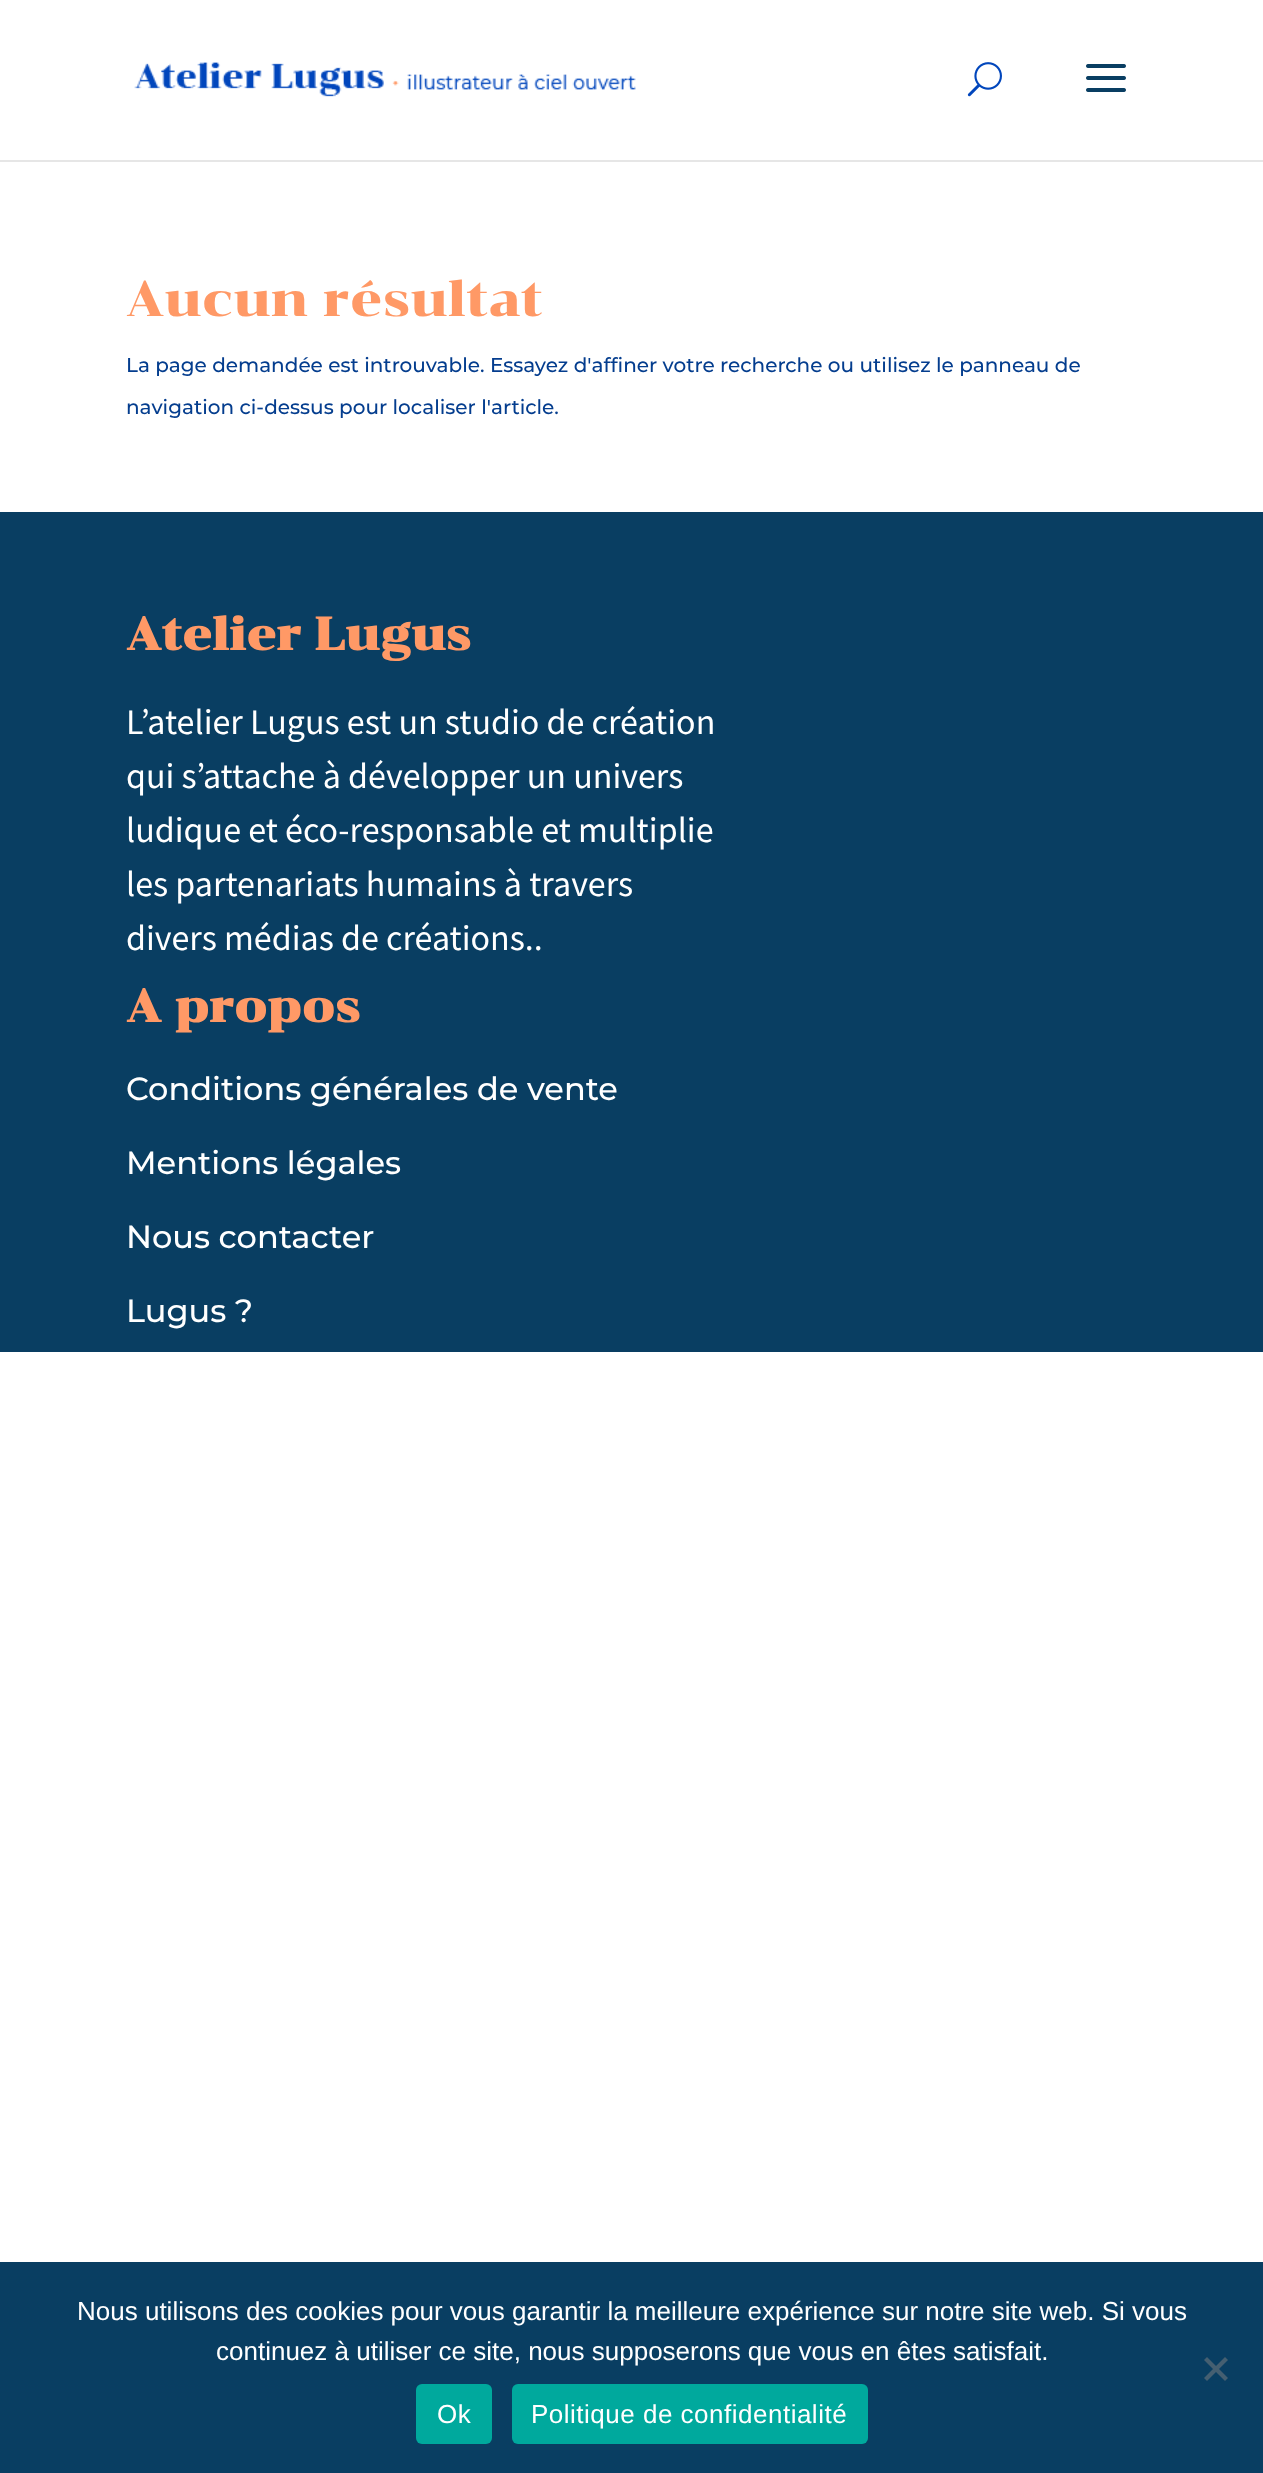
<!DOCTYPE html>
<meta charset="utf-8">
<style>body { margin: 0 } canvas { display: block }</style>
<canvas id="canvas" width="1263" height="2473"></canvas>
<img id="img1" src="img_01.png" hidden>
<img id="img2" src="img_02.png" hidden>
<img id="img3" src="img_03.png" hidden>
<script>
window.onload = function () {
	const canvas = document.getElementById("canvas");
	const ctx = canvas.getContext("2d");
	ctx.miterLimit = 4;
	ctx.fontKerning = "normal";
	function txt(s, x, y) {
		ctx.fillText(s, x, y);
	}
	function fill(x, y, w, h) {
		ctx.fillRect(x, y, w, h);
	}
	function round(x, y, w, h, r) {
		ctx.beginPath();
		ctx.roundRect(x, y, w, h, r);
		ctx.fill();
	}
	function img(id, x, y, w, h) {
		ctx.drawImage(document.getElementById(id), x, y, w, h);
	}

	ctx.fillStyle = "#FFFFFF";
	fill(0, 0, 1263, 2473);
	ctx.fillStyle = "#E6E6E6";
	fill(0, 160, 1263, 2);
	img("img1", 134, 62, 502, 35);
	img("img2", 967, 62, 35, 35);
	img("img3", 1086, 64, 40, 28);
	ctx.fillStyle = "#093E62";
	fill(0, 512, 1263, 840);
	fill(0, 2262, 1263, 211);
	ctx.fillStyle = "#455F71";
	ctx.beginPath();
	ctx.moveTo(1225, 2357);
	ctx.lineTo(1228, 2360);
	ctx.lineTo(1207, 2381);
	ctx.lineTo(1204, 2378);
	ctx.closePath();
	ctx.fill();
	ctx.beginPath();
	ctx.moveTo(1204, 2360);
	ctx.lineTo(1207, 2357);
	ctx.lineTo(1228, 2378);
	ctx.lineTo(1225, 2381);
	ctx.closePath();
	ctx.fill();
	ctx.fillStyle = "#00A99D";
	round(416, 2384, 76, 60, 6);
	round(512, 2384, 356, 60, 6);
	ctx.font = "50px Chonburi";
	ctx.fillStyle = "#FF9966";
	txt("Aucun résultat", 126, 316);
	ctx.font = "100 20px Montserrat";
	ctx.fillStyle = "#043D8E";
	txt("La page demandée est introuvable. Essayez d'affiner votre recherche ou utilisez le panneau de", 126, 372);
	txt("navigation ci-dessus pour localiser l'article.", 126, 414);
	ctx.font = "bold 46px Chonburi";
	ctx.fillStyle = "#FF9966";
	txt("Atelier Lugus", 126, 650);
	ctx.font = "36px Source Sans Pro";
	ctx.fillStyle = "#FFFFFF";
	txt("L’atelier Lugus est un studio de création", 126, 734);
	txt("qui s’attache à développer un univers", 126, 788);
	txt("ludique et éco-responsable et multiplie", 126, 842);
	txt("les partenariats humains à travers", 126, 896);
	txt("divers médias de créations..", 126, 950);
	ctx.font = "bold 46px Chonburi";
	ctx.fillStyle = "#FF9966";
	txt("A propos", 126, 1022);
	ctx.font = "100 32px Montserrat";
	ctx.fillStyle = "#FFFFFF";
	txt("Conditions générales de vente", 126, 1100);
	txt("Mentions légales", 126, 1174);
	txt("Nous contacter", 126, 1248);
	txt("Lugus ?", 126, 1322);
	ctx.font = "26px Liberation Sans";
	txt("Nous utilisons des cookies pour vous garantir la meilleure expérience sur notre site web. Si vous", 77, 2320);
	txt("continuez à utiliser ce site, nous supposerons que vous en êtes satisfait.", 216, 2360);
	ctx.letterSpacing = "0.5px";
	txt("Ok", 437, 2423);
	txt("Politique de confidentialité", 531, 2423);
};
</script>
